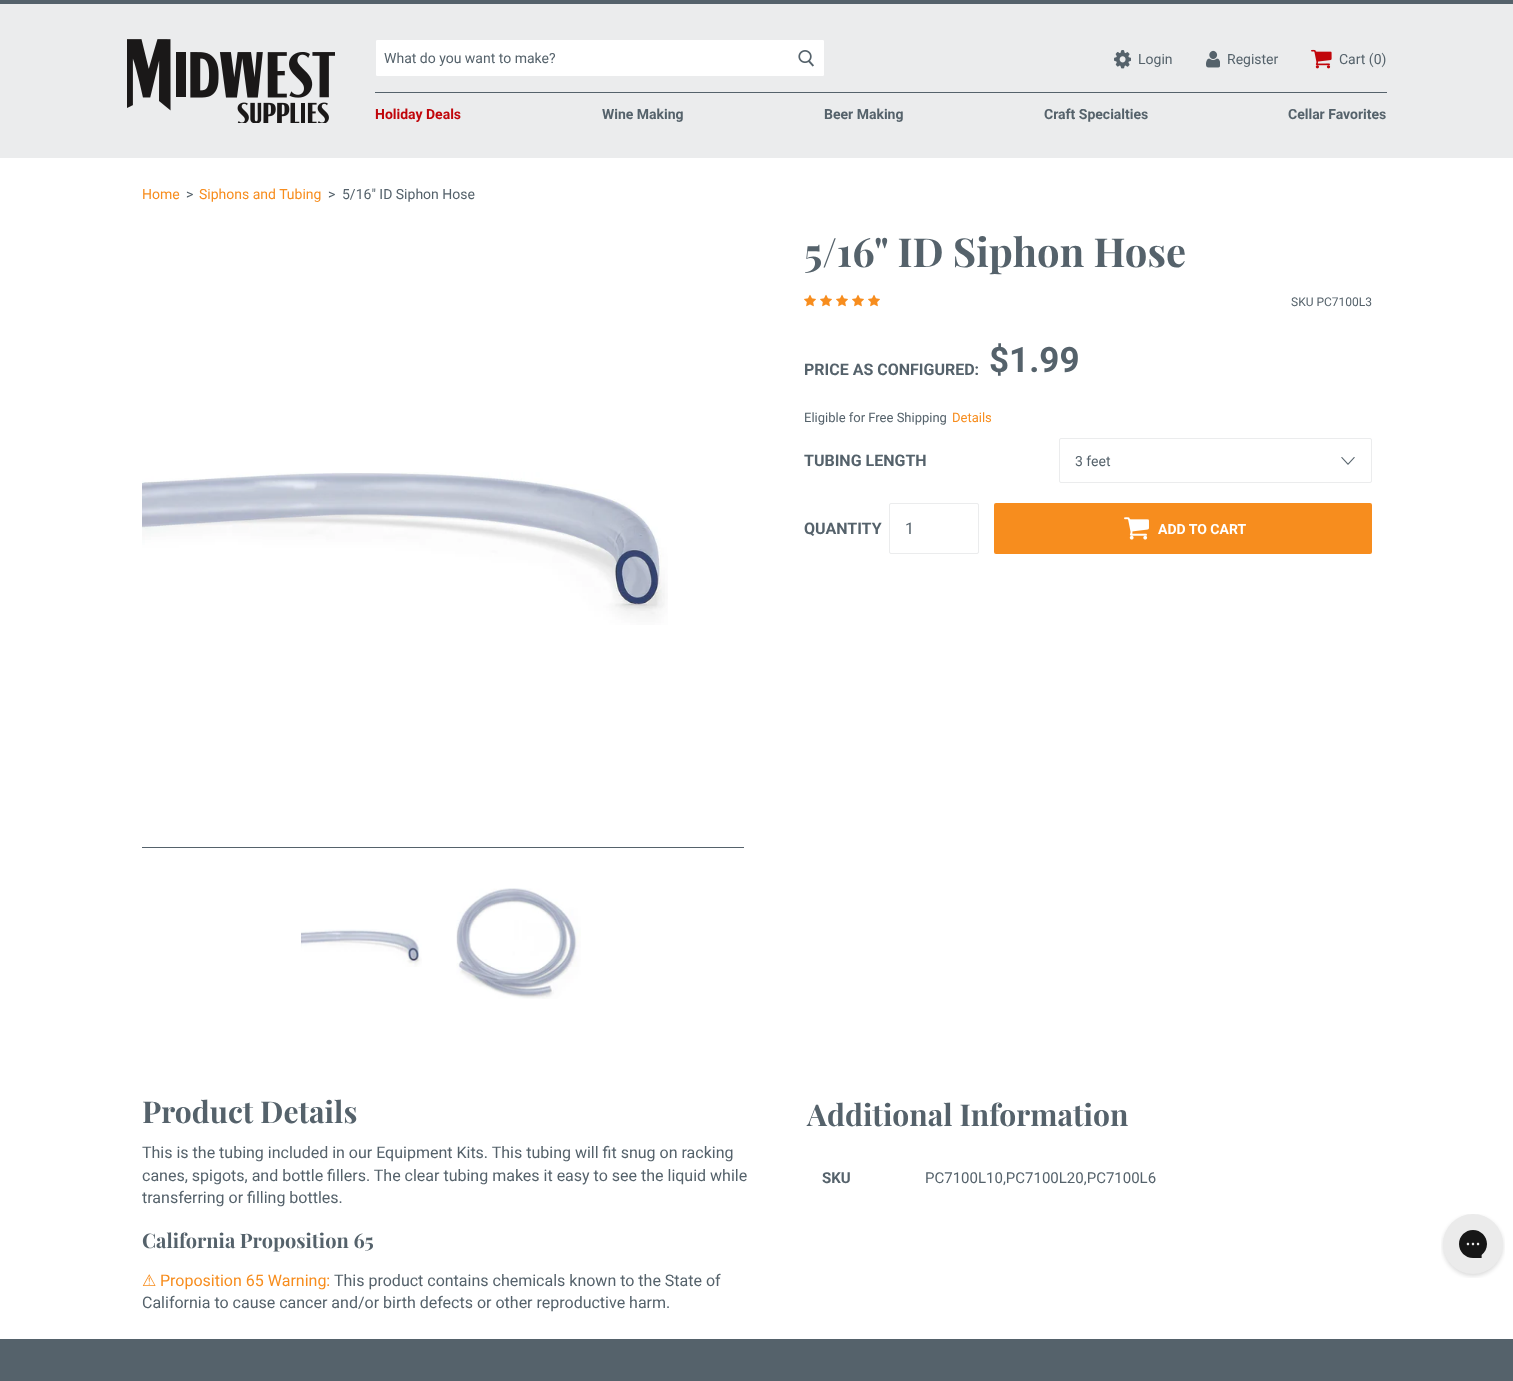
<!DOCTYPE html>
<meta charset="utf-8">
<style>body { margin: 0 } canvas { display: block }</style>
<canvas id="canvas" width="1513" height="1381"></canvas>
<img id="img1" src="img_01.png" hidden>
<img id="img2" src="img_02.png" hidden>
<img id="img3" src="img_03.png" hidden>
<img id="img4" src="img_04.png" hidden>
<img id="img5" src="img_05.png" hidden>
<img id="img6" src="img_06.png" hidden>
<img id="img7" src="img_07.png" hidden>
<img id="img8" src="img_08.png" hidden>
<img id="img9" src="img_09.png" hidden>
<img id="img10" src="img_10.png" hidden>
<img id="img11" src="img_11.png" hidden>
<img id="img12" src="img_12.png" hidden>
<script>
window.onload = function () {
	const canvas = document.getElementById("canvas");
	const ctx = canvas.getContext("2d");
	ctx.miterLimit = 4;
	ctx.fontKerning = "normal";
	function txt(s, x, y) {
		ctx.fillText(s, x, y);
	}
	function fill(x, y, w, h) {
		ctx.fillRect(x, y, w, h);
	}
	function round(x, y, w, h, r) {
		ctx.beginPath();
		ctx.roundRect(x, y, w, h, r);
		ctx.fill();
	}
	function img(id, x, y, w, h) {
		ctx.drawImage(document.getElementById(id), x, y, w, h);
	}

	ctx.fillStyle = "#FFFFFF";
	fill(0, 0, 1513, 1381);
	ctx.fillStyle = "#EBECED";
	fill(0, 4, 1513, 154);
	ctx.fillStyle = "#55626B";
	fill(0, 0, 1513, 4);
	img("img1", 127, 39, 208, 84);
	fill(375, 92, 1012, 1);
	ctx.fillStyle = "#FFFFFF";
	ctx.beginPath();
	ctx.roundRect(375.5, 39.5, 449, 37, 1.5);
	ctx.fill();
	ctx.strokeStyle = "#EBECED";
	ctx.stroke();
	img("img2", 798, 50, 16, 17);
	img("img3", 1114, 50, 17, 19);
	img("img4", 1206, 50, 14, 18);
	img("img5", 1311, 49, 21, 20);
	img("img6", 804, 294, 12, 13);
	img("img6", 820, 294, 12, 13);
	img("img6", 836, 294, 12, 13);
	img("img6", 852, 294, 12, 13);
	img("img6", 868, 294, 12, 13);
	ctx.beginPath();
	ctx.roundRect(1059.5, 438.5, 312, 44, 1.5);
	ctx.stroke();
	img("img7", 1341, 457, 14, 8);
	ctx.beginPath();
	ctx.roundRect(889.5, 503.5, 89, 50, 1.5);
	ctx.stroke();
	ctx.fillStyle = "#F78D1E";
	round(994, 503, 378, 51, 2);
	img("img8", 1124, 517, 25, 23);
	img("img9", 142, 472, 526, 153);
	ctx.fillStyle = "#55626B";
	fill(142, 847, 602, 1);
	img("img10", 301, 929, 121, 38);
	img("img11", 456, 888, 125, 111);
	fill(0, 1339, 1513, 42);
	img("img12", 1441, 1214, 64, 64);
	ctx.font = "14px Roboto";
	txt("What do you want to make?", 384, 63);
	txt("Login", 1138, 64);
	txt("Register", 1227, 64);
	txt("Cart (0)", 1339, 64);
	ctx.font = "bold 14px Roboto";
	ctx.fillStyle = "#C1060B";
	txt("Holiday Deals", 375, 119);
	ctx.fillStyle = "#55626B";
	txt("Wine Making", 602, 119);
	txt("Beer Making", 824, 119);
	txt("Craft Specialties", 1044, 119);
	txt("Cellar Favorites", 1288, 119);
	ctx.font = "14px Roboto";
	ctx.fillStyle = "#F78D1E";
	txt("Home", 142, 199);
	ctx.fillStyle = "#55626B";
	txt(">", 186, 199);
	ctx.fillStyle = "#F78D1E";
	txt("Siphons and Tubing", 199, 199);
	ctx.fillStyle = "#55626B";
	txt(">", 328, 199);
	txt("5/16\" ID Siphon Hose", 342, 199);
	ctx.font = "bold 40px Playfair Display";
	txt("5/16\" ID Siphon Hose", 804, 267);
	ctx.font = "12px Roboto";
	txt("SKU PC7100L3", 1291, 306);
	ctx.font = "bold 16px Roboto";
	txt("PRICE AS CONFIGURED:", 804, 375);
	ctx.font = "bold 35px Roboto";
	txt("$1.99", 989, 372);
	ctx.font = "13px Roboto";
	txt("Eligible for Free Shipping", 804, 422);
	ctx.fillStyle = "#F78D1E";
	txt("Details", 952, 422);
	ctx.font = "bold 16px Roboto";
	ctx.fillStyle = "#55626B";
	txt("TUBING LENGTH", 804, 466);
	ctx.font = "14px Roboto";
	txt("3 feet", 1075, 466);
	ctx.font = "bold 16px Roboto";
	txt("QUANTITY", 804, 534);
	ctx.font = "16px Roboto";
	txt("1", 905, 534);
	ctx.font = "bold 14px Roboto";
	ctx.fillStyle = "#FFFFFF";
	txt("ADD TO CART", 1158, 534);
	ctx.font = "bold 30px Playfair Display";
	ctx.fillStyle = "#55626B";
	txt("Product Details", 142, 1123);
	ctx.font = "16px Roboto";
	txt("This is the tubing included in our Equipment Kits. This tubing will fit snug on racking", 142, 1158);
	txt("canes, spigots, and bottle fillers. The clear tubing makes it easy to see the liquid while", 142, 1181);
	txt("transferring or filling bottles.", 142, 1203);
	ctx.font = "bold 20px Playfair Display";
	txt("California Proposition 65", 142, 1248);
	ctx.font = "16px DejaVu Sans";
	ctx.fillStyle = "#F78D1E";
	txt("⚠", 142, 1286);
	ctx.font = "16px Roboto";
	txt("Proposition 65 Warning:", 160, 1286);
	ctx.fillStyle = "#55626B";
	txt("This product contains chemicals known to the State of", 334, 1286);
	txt("California to cause cancer and/or birth defects or other reproductive harm.", 142, 1308);
	ctx.font = "bold 30px Playfair Display";
	txt("Additional Information", 807, 1126);
	ctx.font = "bold 15px Roboto";
	txt("SKU", 822, 1183);
	ctx.font = "15px Roboto";
	txt("PC7100L10,PC7100L20,PC7100L6", 925, 1183);
};
</script>
